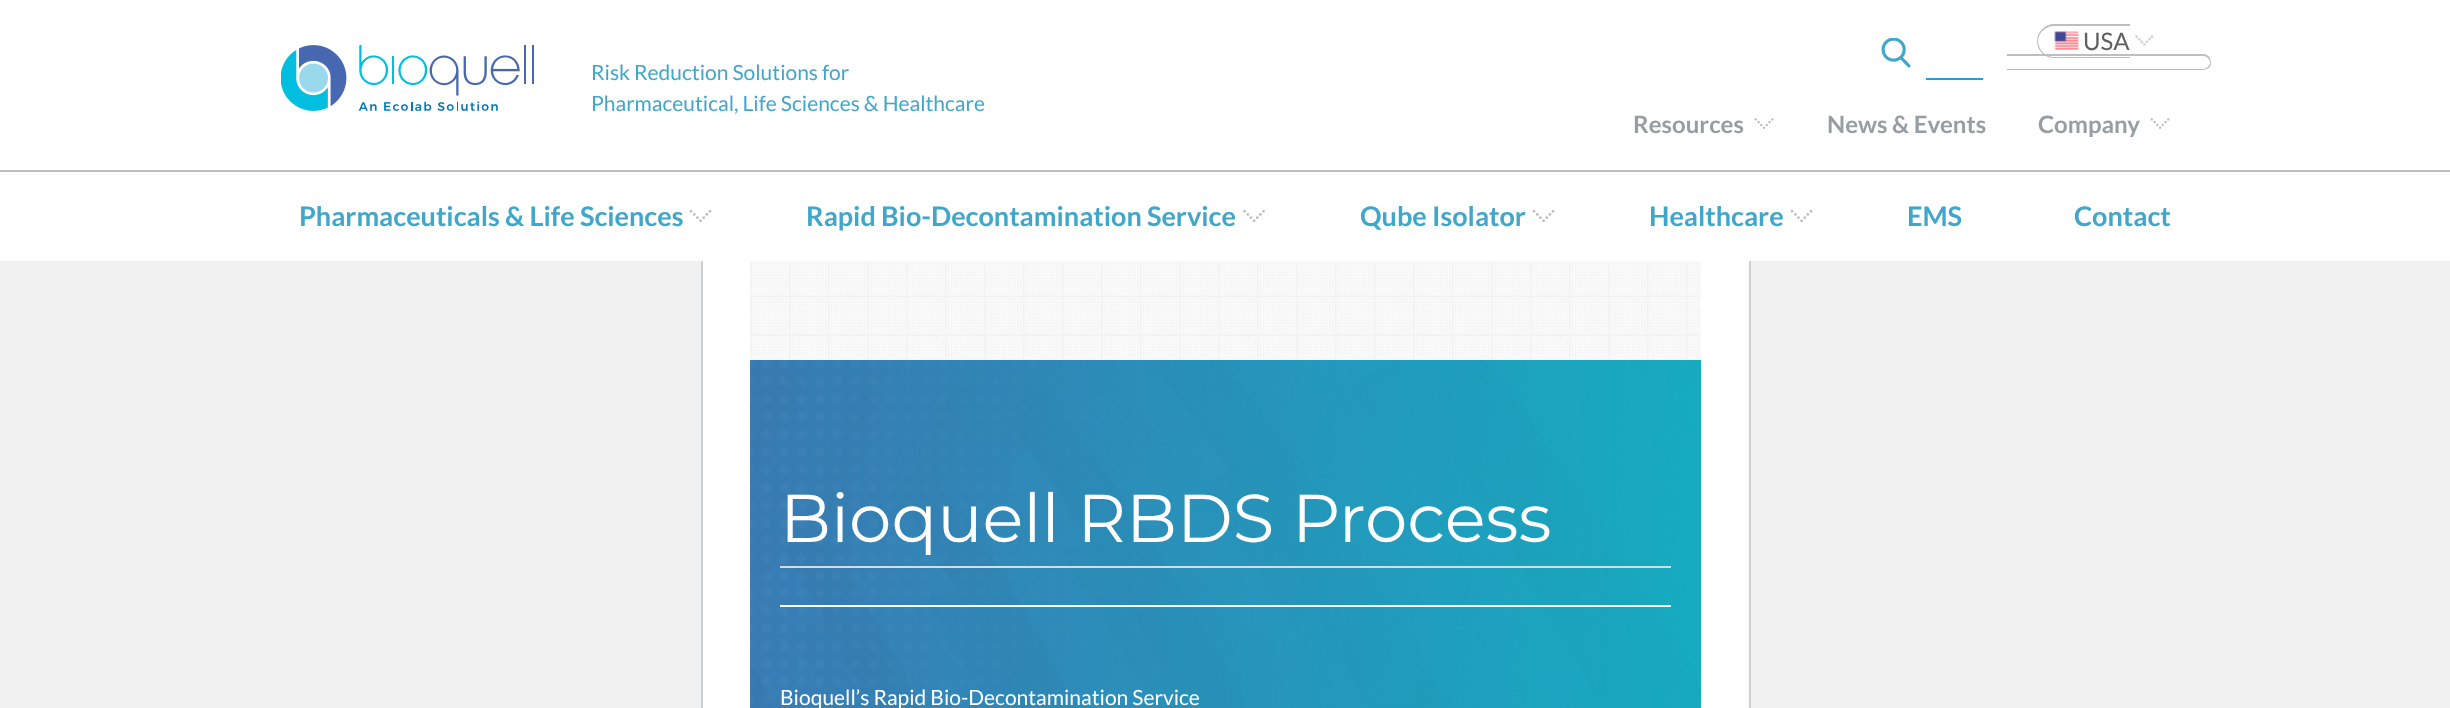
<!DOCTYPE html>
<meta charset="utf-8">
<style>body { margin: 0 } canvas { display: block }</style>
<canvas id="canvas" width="2450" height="708"></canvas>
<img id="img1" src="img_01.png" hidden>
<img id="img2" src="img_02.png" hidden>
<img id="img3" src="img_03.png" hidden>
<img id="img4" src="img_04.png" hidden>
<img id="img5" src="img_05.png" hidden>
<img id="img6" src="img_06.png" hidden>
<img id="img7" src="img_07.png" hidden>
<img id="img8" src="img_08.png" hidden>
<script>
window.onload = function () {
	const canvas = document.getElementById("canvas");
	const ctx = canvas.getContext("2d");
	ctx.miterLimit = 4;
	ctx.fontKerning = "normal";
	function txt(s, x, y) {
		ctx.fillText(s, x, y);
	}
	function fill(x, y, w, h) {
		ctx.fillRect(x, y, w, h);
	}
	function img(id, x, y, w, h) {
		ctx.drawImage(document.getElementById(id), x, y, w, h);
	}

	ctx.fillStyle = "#F1F1F1";
	fill(0, 0, 2450, 708);
	ctx.fillStyle = "#FFFFFF";
	fill(703, 261, 1046, 447);
	ctx.strokeStyle = "#CCD0D4";
	ctx.lineWidth = 2;
	ctx.strokeRect(702, 76, 1048, 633);
	img("img1", 750, 261, 951, 99);
	fill(0, 0, 2450, 261);
	img("img2", 281, 45, 253, 66);
	img("img3", 1881, 38, 30, 30);
	ctx.fillStyle = "#1A9FEA";
	fill(1926, 78, 57, 2);
	img("img4", 2054, 31, 100, 19);
	ctx.fillStyle = "#BEBEBE";
	ctx.beginPath();
	ctx.moveTo(2054, 24);
	ctx.lineTo(2130, 24);
	ctx.lineTo(2130, 58);
	ctx.lineTo(2054, 58);
	ctx.bezierCurveTo(2045, 58, 2037, 51, 2037, 41);
	ctx.bezierCurveTo(2037, 32, 2045, 24, 2054, 24);
	ctx.closePath();
	ctx.moveTo(2054, 26);
	ctx.lineTo(2130, 26);
	ctx.lineTo(2130, 57);
	ctx.lineTo(2054, 57);
	ctx.bezierCurveTo(2046, 57, 2038, 50, 2038, 41);
	ctx.bezierCurveTo(2038, 33, 2046, 26, 2054, 26);
	ctx.closePath();
	ctx.fill("evenodd");
	ctx.beginPath();
	ctx.moveTo(2007, 54);
	ctx.lineTo(2204, 54);
	ctx.bezierCurveTo(2211, 55, 2213, 64, 2209, 68);
	ctx.lineTo(2204, 70);
	ctx.lineTo(2007, 70);
	ctx.closePath();
	ctx.moveTo(2007, 56);
	ctx.lineTo(2203, 56);
	ctx.bezierCurveTo(2206, 56, 2210, 59, 2210, 62);
	ctx.bezierCurveTo(2210, 66, 2206, 69, 2203, 69);
	ctx.lineTo(2007, 69);
	ctx.closePath();
	ctx.fill("evenodd");
	img("img5", 1754, 118, 20, 11);
	img("img5", 2150, 118, 20, 11);
	fill(0, 170, 2450, 2);
	img("img6", 689, 209, 23, 14);
	img("img7", 1243, 209, 22, 14);
	img("img6", 1532, 209, 23, 14);
	img("img6", 1790, 209, 23, 14);
	img("img8", 750, 360, 951, 348);
	ctx.fillStyle = "#DADADA";
	fill(780, 566, 891, 2);
	ctx.fillStyle = "#FFFFFF";
	fill(780, 605, 891, 2);
	ctx.font = "21px Lato";
	ctx.fillStyle = "#40A6CA";
	txt("Risk Reduction Solutions for", 591, 80);
	txt("Pharmaceutical, Life Sciences & Healthcare", 591, 111);
	ctx.font = "24px Lato";
	ctx.fillStyle = "#5F5F5F";
	txt("USA", 2083, 50);
	ctx.font = "bold 24px Lato";
	ctx.fillStyle = "#979EA3";
	txt("Resources", 1633, 133);
	txt("News & Events", 1827, 133);
	txt("Company", 2038, 133);
	ctx.font = "bold 27px Lato";
	ctx.fillStyle = "#40A6CA";
	txt("Pharmaceuticals & Life Sciences", 299, 226);
	txt("Rapid Bio-Decontamination Service", 806, 226);
	txt("Qube Isolator", 1360, 226);
	txt("Healthcare", 1649, 226);
	txt("EMS", 1907, 226);
	txt("Contact", 2074, 226);
	ctx.font = "67.5px Montserrat";
	ctx.fillStyle = "#FFFFFF";
	txt("Bioquell RBDS Process", 780, 542);
	ctx.font = "21px Lato";
	txt("Bioquell’s Rapid Bio-Decontamination Service", 780, 705);
};
</script>
